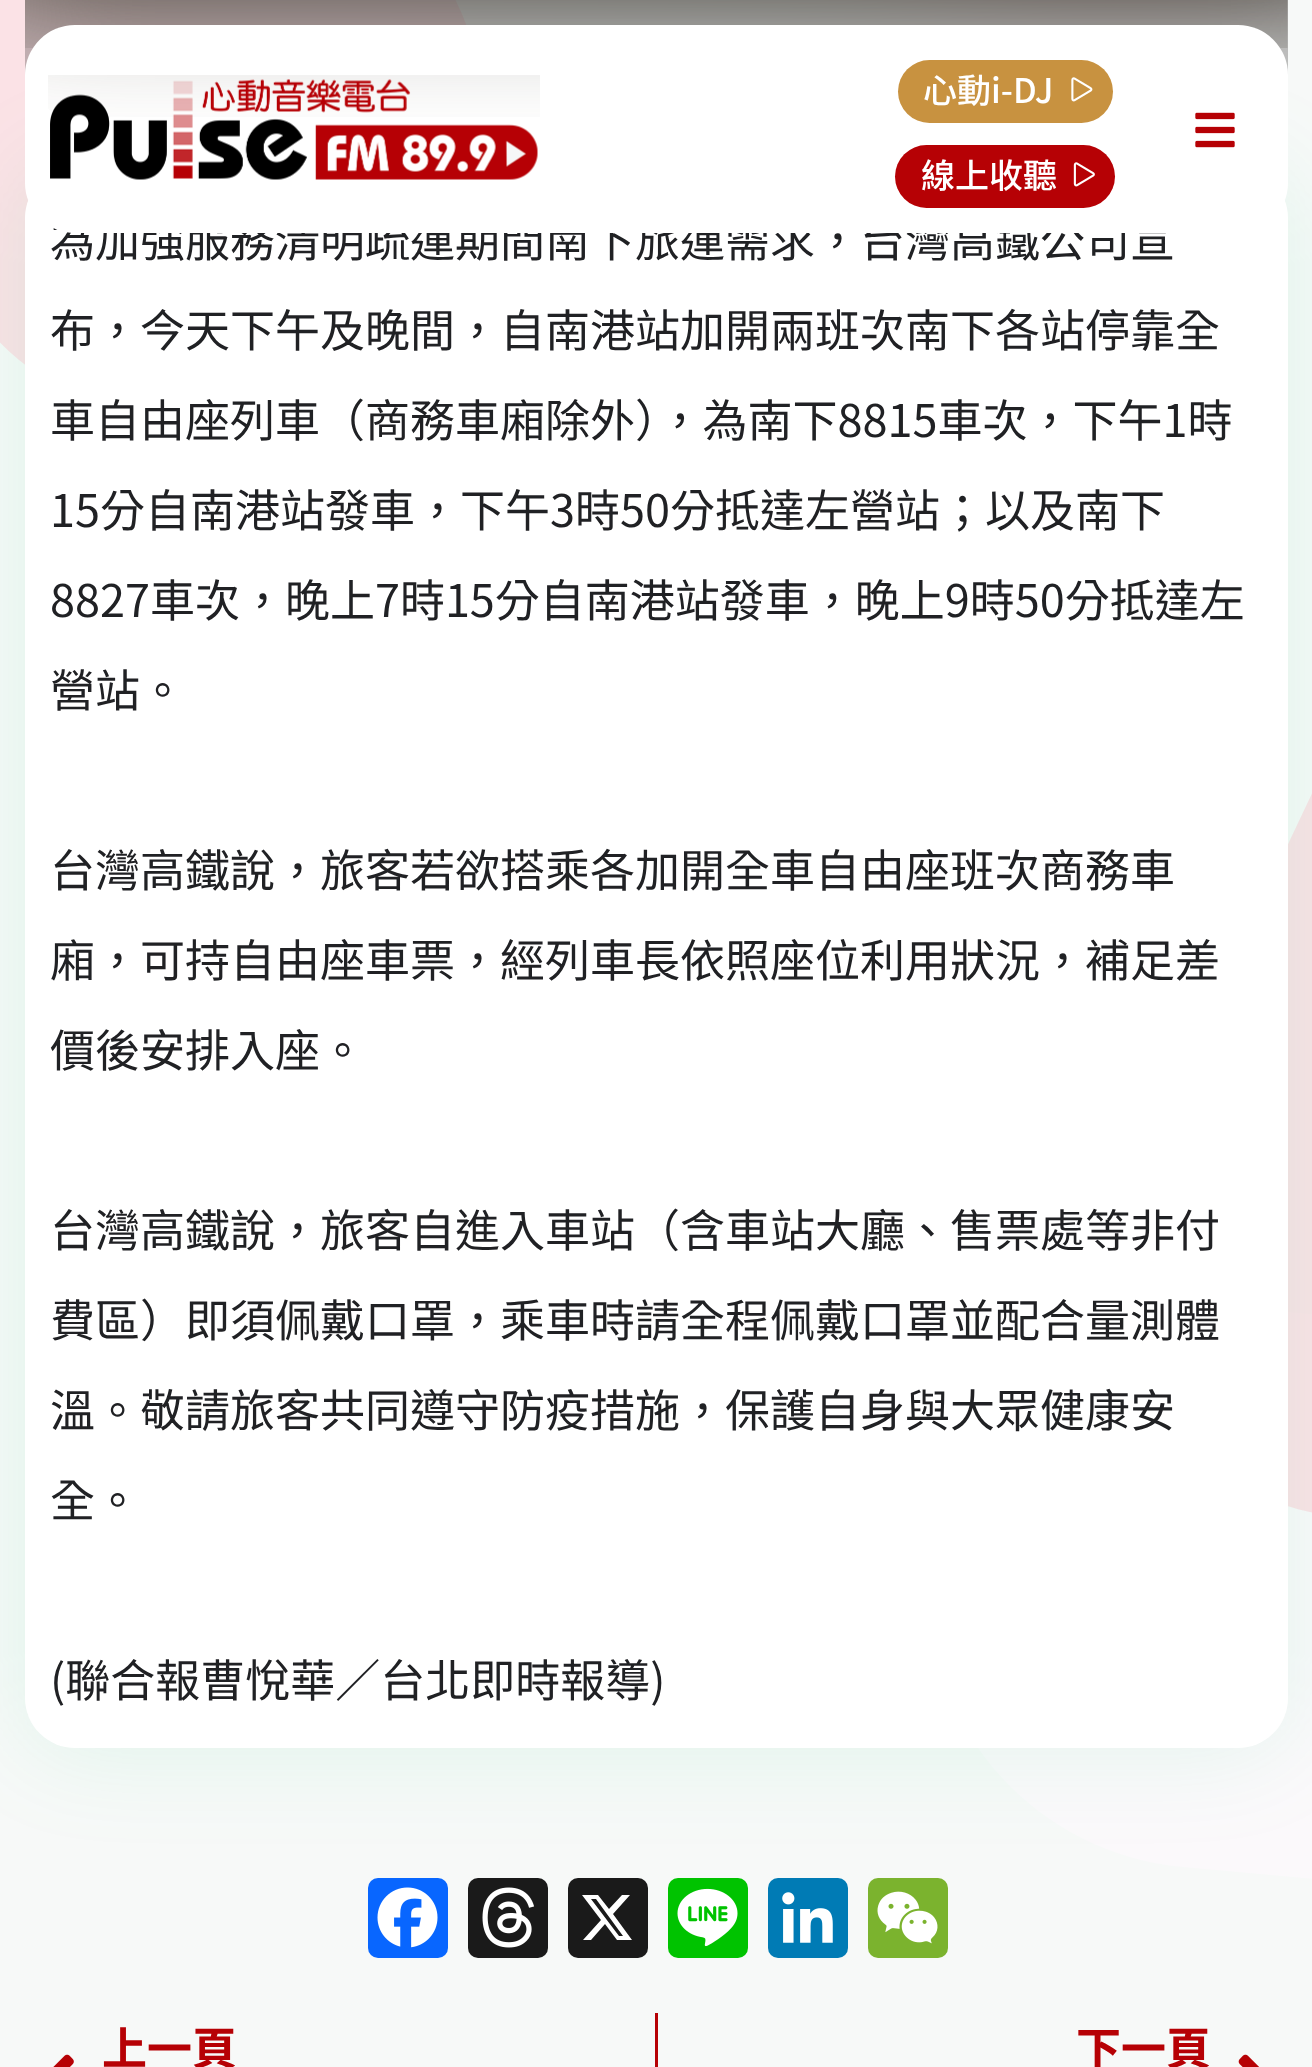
<!DOCTYPE html>
<meta charset="utf-8">
<style>body { margin: 0 } canvas { display: block }</style>
<canvas id="canvas" width="1312" height="2067"></canvas>
<img id="img1" src="img_05.png" hidden>
<img id="img2" src="img_06.png" hidden>
<img id="img3" src="img_07.png" hidden>
<img id="img4" src="img_08.png" hidden>
<img id="img5" src="img_09.png" hidden>
<img id="img6" src="img_10.png" hidden>
<img id="img7" src="img_11.png" hidden>
<img id="img8" src="img_12.png" hidden>
<img id="img9" src="img_03.png" hidden>
<img id="img10" src="img_02.png" hidden>
<img id="img11" src="img_04.png" hidden>
<img id="img12" src="img_01.png" hidden>
<script>
window.onload = function () {
	const canvas = document.getElementById("canvas");
	const ctx = canvas.getContext("2d");
	ctx.miterLimit = 4;
	ctx.fontKerning = "normal";
	function txt(s, x, y) {
		ctx.fillText(s, x, y);
	}
	function fill(x, y, w, h) {
		ctx.fillRect(x, y, w, h);
	}
	function round(x, y, w, h, r) {
		ctx.beginPath();
		ctx.roundRect(x, y, w, h, r);
		ctx.fill();
	}
	function img(id, x, y, w, h) {
		ctx.drawImage(document.getElementById(id), x, y, w, h);
	}

	ctx.fillStyle = "#F7F9F8";
	fill(0, 0, 1312, 2067);
	ctx.fillStyle = "#FBE2E6";
	ctx.beginPath();
	ctx.moveTo(-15, -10);
	ctx.lineTo(19, -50);
	ctx.bezierCurveTo(111, -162, 277, -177, 388, -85);
	ctx.bezierCurveTo(500, 8, 515, 173, 423, 285);
	ctx.lineTo(389, 325);
	ctx.bezierCurveTo(297, 437, 131, 452, 19, 360);
	ctx.bezierCurveTo(-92, 267, -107, 102, -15, -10);
	ctx.closePath();
	ctx.fill();
	ctx.fillStyle = "#FBF9FB";
	ctx.beginPath();
	ctx.moveTo(928, 1562);
	ctx.bezierCurveTo(942, 1407, 1079, 1293, 1233, 1307);
	ctx.lineTo(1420, 1324);
	ctx.bezierCurveTo(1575, 1337, 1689, 1474, 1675, 1629);
	ctx.bezierCurveTo(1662, 1783, 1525, 1898, 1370, 1884);
	ctx.lineTo(1183, 1867);
	ctx.bezierCurveTo(1029, 1853, 915, 1717, 928, 1562);
	ctx.closePath();
	ctx.fill();
	ctx.fillStyle = "rgba(255, 192, 203, 0.4)";
	ctx.beginPath();
	ctx.moveTo(1138, 1161);
	ctx.lineTo(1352, 709);
	ctx.bezierCurveTo(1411, 584, 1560, 530, 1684, 589);
	ctx.bezierCurveTo(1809, 648, 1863, 798, 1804, 922);
	ctx.lineTo(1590, 1374);
	ctx.bezierCurveTo(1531, 1499, 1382, 1553, 1257, 1494);
	ctx.bezierCurveTo(1132, 1434, 1079, 1285, 1138, 1161);
	ctx.closePath();
	ctx.fill();
	ctx.fillStyle = "rgba(0, 196, 106, 0.1)";
	ctx.filter = "blur(50px)";
	ctx.beginPath();
	ctx.roundRect(25, 168, 1263, 1580, 50);
	ctx.fill();
	ctx.filter = "none";
	ctx.fillStyle = "#FFFFFF";
	round(25, 168, 1263, 1580, 50);
	ctx.save();
	ctx.beginPath();
	ctx.roundRect(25, -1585, 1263, 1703, 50);
	ctx.clip();
	ctx.fillStyle = "#968F8B";
	ctx.filter = "blur(75px)";
	ctx.beginPath();
	ctx.rect(-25, -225, 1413, 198);
	ctx.fill();
	ctx.filter = "none";
	ctx.restore();
	img("img1", 25, 0, 1263, 48);
	ctx.fillStyle = "rgba(0, 0, 0, 0.2)";
	round(25, -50, 1263, 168, 50);
	ctx.fillStyle = "#0866FF";
	round(368, 1878, 80, 80, 10);
	img("img2", 377, 1887, 61, 61);
	ctx.fillStyle = "#1A1A1A";
	round(468, 1878, 80, 80, 10);
	img("img3", 482, 1887, 53, 61);
	round(568, 1878, 80, 80, 10);
	ctx.fillStyle = "#FFFFFF";
	ctx.beginPath();
	ctx.moveTo(622, 1895);
	ctx.lineTo(630, 1895);
	ctx.lineTo(613, 1914);
	ctx.lineTo(632, 1940);
	ctx.lineTo(617, 1940);
	ctx.lineTo(605, 1924);
	ctx.lineTo(591, 1940);
	ctx.lineTo(583, 1940);
	ctx.lineTo(601, 1920);
	ctx.lineTo(582, 1895);
	ctx.lineTo(598, 1895);
	ctx.lineTo(609, 1909);
	ctx.closePath();
	ctx.moveTo(619, 1936);
	ctx.lineTo(623, 1936);
	ctx.lineTo(596, 1899);
	ctx.lineTo(591, 1899);
	ctx.closePath();
	ctx.fill();
	ctx.fillStyle = "#00C300";
	round(668, 1878, 80, 80, 10);
	img("img4", 677, 1888, 61, 59);
	ctx.fillStyle = "#007BB5";
	round(768, 1878, 80, 80, 10);
	img("img5", 782, 1892, 51, 51);
	ctx.fillStyle = "#7BB32E";
	round(868, 1878, 80, 80, 10);
	img("img6", 877, 1891, 61, 53);
	img("img7", 53, 2054, 21, 13);
	ctx.fillStyle = "#B60105";
	fill(655, 2013, 3, 54);
	img("img8", 1238, 2054, 21, 13);
	ctx.font = "45px Noto Sans TC";
	ctx.fillStyle = "#202124";
	txt("為加強服務清明疏運期間南下旅運需求，台灣高鐵公司宣", 50, 257);
	ctx.fillStyle = "#FFFFFF";
	round(25, 25, 1263, 208, 50);
	ctx.fillStyle = "#B60105";
	round(895, 145, 220, 63, 31.5);
	img("img9", 1073, 162, 22, 25);
	ctx.font = "500 34px Noto Sans TC";
	ctx.fillStyle = "#FFFFFF";
	txt("線上收聽", 921, 188);
	ctx.fillStyle = "#C89240";
	round(898, 60, 215, 63, 31.5);
	img("img10", 1071, 77, 22, 25);
	ctx.fillStyle = "#FFFFFF";
	txt("心動i-DJ", 923, 103);
	img("img11", 1195, 112, 40, 36);
	img("img12", 48, 75, 492, 105);
	ctx.font = "45px Noto Sans TC";
	ctx.fillStyle = "#202124";
	txt("布，今天下午及晚間，自南港站加開兩班次南下各站停靠全", 50, 347);
	txt("車自由座列車（商務車廂除外），為南下8815車次，下午1時", 50, 437);
	txt("15分自南港站發車，下午3時50分抵達左營站；以及南下", 50, 527);
	txt("8827車次，晚上7時15分自南港站發車，晚上9時50分抵達左", 50, 617);
	txt("營站。", 50, 707);
	txt("台灣高鐵說，旅客若欲搭乘各加開全車自由座班次商務車", 50, 887);
	txt("廂，可持自由座車票，經列車長依照座位利用狀況，補足差", 50, 977);
	txt("價後安排入座。", 50, 1067);
	txt("台灣高鐵說，旅客自進入車站（含車站大廳、售票處等非付", 50, 1247);
	txt("費區）即須佩戴口罩，乘車時請全程佩戴口罩並配合量測體", 50, 1337);
	txt("溫。敬請旅客共同遵守防疫措施，保護自身與大眾健康安", 50, 1427);
	txt("全。", 50, 1517);
	txt("(聯合報曹悅華／台北即時報導)", 50, 1697);
	ctx.font = "bold 45px Noto Sans TC";
	ctx.fillStyle = "#B60105";
	txt("上一頁", 102, 2065);
	txt("下一頁", 1076, 2065);
};
</script>
